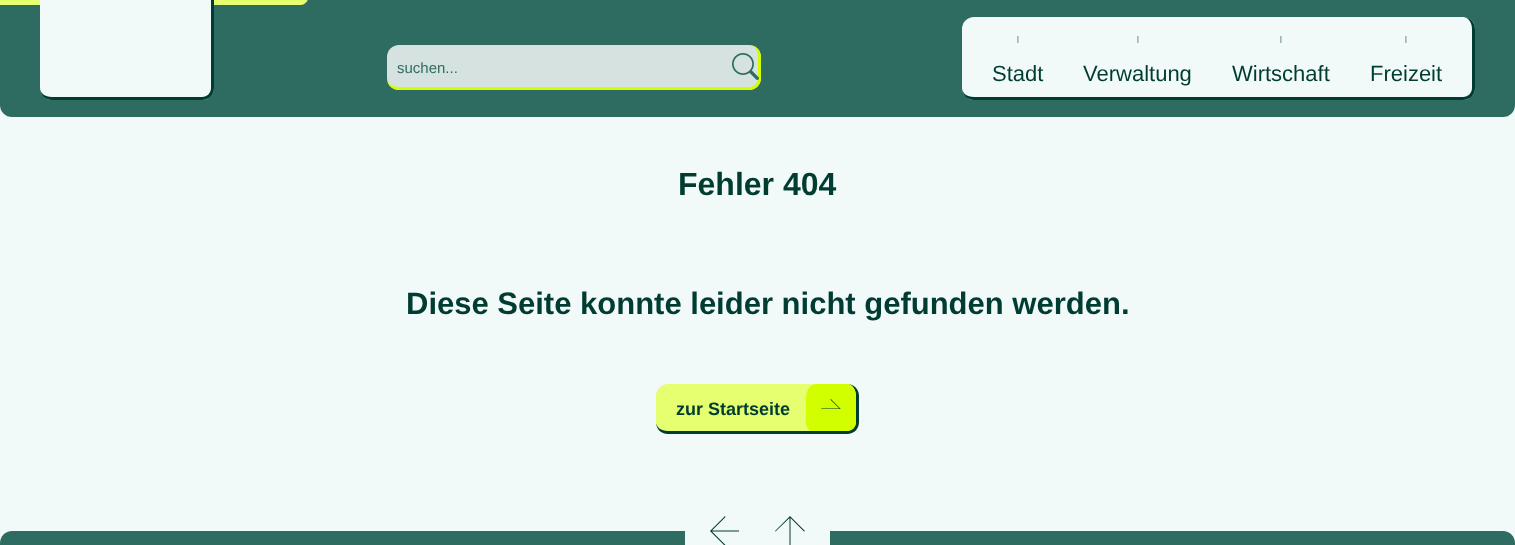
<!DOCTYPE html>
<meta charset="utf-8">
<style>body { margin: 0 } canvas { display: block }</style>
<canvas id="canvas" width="1515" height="545"></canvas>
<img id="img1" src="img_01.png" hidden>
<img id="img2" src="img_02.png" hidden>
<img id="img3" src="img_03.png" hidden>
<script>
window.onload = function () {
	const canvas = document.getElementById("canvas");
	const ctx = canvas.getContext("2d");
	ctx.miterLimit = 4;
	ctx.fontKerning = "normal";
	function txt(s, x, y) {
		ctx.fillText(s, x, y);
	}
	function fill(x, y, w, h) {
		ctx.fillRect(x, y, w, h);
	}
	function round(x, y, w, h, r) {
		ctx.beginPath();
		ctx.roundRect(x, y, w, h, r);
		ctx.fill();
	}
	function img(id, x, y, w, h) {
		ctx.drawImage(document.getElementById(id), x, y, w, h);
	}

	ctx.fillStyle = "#F1FAF8";
	fill(0, 0, 1515, 545);
	ctx.fillStyle = "#2E6C61";
	ctx.beginPath();
	ctx.roundRect(0, 0, 1515, 117, [0, 0, 12, 12]);
	ctx.fill();
	ctx.fillStyle = "#E5FF71";
	round(-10, -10, 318, 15, 10);
	ctx.fillStyle = "#F1FAF8";
	ctx.beginPath();
	ctx.roundRect(40, 0, 174, 100, [0, 0, 12, 12]);
	ctx.fill();
	ctx.fillStyle = "#003C31";
	ctx.beginPath();
	ctx.moveTo(40, 0);
	ctx.lineTo(214, 0);
	ctx.lineTo(214, 88);
	ctx.bezierCurveTo(214, 95, 209, 100, 202, 100);
	ctx.lineTo(52, 100);
	ctx.bezierCurveTo(45, 100, 40, 95, 40, 88);
	ctx.closePath();
	ctx.moveTo(40, 0);
	ctx.lineTo(211, 0);
	ctx.lineTo(211, 88);
	ctx.bezierCurveTo(211, 93, 207, 97, 202, 97);
	ctx.lineTo(52, 97);
	ctx.bezierCurveTo(45, 97, 40, 93, 40, 88);
	ctx.closePath();
	ctx.fill("evenodd");
	ctx.fillStyle = "#D5E2DF";
	round(387, 45, 374, 45, 12);
	ctx.fillStyle = "#D2FF00";
	ctx.beginPath();
	ctx.moveTo(399, 45);
	ctx.lineTo(749, 45);
	ctx.bezierCurveTo(756, 45, 761, 50, 761, 57);
	ctx.lineTo(761, 78);
	ctx.bezierCurveTo(761, 85, 756, 90, 749, 90);
	ctx.lineTo(399, 90);
	ctx.bezierCurveTo(392, 90, 387, 85, 387, 78);
	ctx.lineTo(387, 57);
	ctx.bezierCurveTo(387, 50, 392, 45, 399, 45);
	ctx.closePath();
	ctx.moveTo(399, 45);
	ctx.lineTo(749, 45);
	ctx.bezierCurveTo(754, 45, 758, 50, 758, 57);
	ctx.lineTo(758, 78);
	ctx.bezierCurveTo(758, 83, 754, 87, 749, 87);
	ctx.lineTo(399, 87);
	ctx.bezierCurveTo(392, 87, 387, 83, 387, 78);
	ctx.lineTo(387, 57);
	ctx.bezierCurveTo(387, 50, 392, 45, 399, 45);
	ctx.closePath();
	ctx.fill("evenodd");
	img("img1", 732, 53, 27, 27);
	ctx.fillStyle = "#F1FAF8";
	round(962, 17, 513, 83, 12);
	ctx.fillStyle = "#003C31";
	ctx.beginPath();
	ctx.moveTo(974, 17);
	ctx.lineTo(1463, 17);
	ctx.bezierCurveTo(1470, 17, 1475, 22, 1475, 29);
	ctx.lineTo(1475, 88);
	ctx.bezierCurveTo(1475, 95, 1470, 100, 1463, 100);
	ctx.lineTo(974, 100);
	ctx.bezierCurveTo(967, 100, 962, 95, 962, 88);
	ctx.lineTo(962, 29);
	ctx.bezierCurveTo(962, 22, 967, 17, 974, 17);
	ctx.closePath();
	ctx.moveTo(974, 17);
	ctx.lineTo(1463, 17);
	ctx.bezierCurveTo(1468, 17, 1472, 22, 1472, 29);
	ctx.lineTo(1472, 88);
	ctx.bezierCurveTo(1472, 93, 1468, 97, 1463, 97);
	ctx.lineTo(974, 97);
	ctx.bezierCurveTo(967, 97, 962, 93, 962, 88);
	ctx.lineTo(962, 29);
	ctx.bezierCurveTo(962, 22, 967, 17, 974, 17);
	ctx.closePath();
	ctx.fill("evenodd");
	img("img2", 1017, 36, 2, 7);
	img("img2", 1137, 36, 2, 7);
	img("img2", 1280, 36, 2, 7);
	img("img2", 1405, 36, 2, 7);
	ctx.fillStyle = "#E5FF71";
	round(656, 384, 203, 50, 12);
	ctx.fillStyle = "#003C31";
	ctx.beginPath();
	ctx.moveTo(668, 384);
	ctx.lineTo(847, 384);
	ctx.bezierCurveTo(854, 384, 859, 389, 859, 396);
	ctx.lineTo(859, 422);
	ctx.bezierCurveTo(859, 429, 854, 434, 847, 434);
	ctx.lineTo(668, 434);
	ctx.bezierCurveTo(661, 434, 656, 429, 656, 422);
	ctx.lineTo(656, 396);
	ctx.bezierCurveTo(656, 389, 661, 384, 668, 384);
	ctx.closePath();
	ctx.moveTo(668, 384);
	ctx.lineTo(847, 384);
	ctx.bezierCurveTo(852, 384, 856, 389, 856, 396);
	ctx.lineTo(856, 422);
	ctx.bezierCurveTo(856, 427, 852, 431, 847, 431);
	ctx.lineTo(668, 431);
	ctx.bezierCurveTo(661, 431, 656, 427, 656, 422);
	ctx.lineTo(656, 396);
	ctx.bezierCurveTo(656, 389, 661, 384, 668, 384);
	ctx.closePath();
	ctx.fill("evenodd");
	ctx.fillStyle = "#D2FF00";
	ctx.beginPath();
	ctx.moveTo(818, 384);
	ctx.bezierCurveTo(804, 384, 806, 400, 806, 409);
	ctx.bezierCurveTo(806, 416, 804, 426, 810, 431);
	ctx.lineTo(847, 431);
	ctx.bezierCurveTo(852, 431, 856, 427, 856, 422);
	ctx.lineTo(856, 396);
	ctx.bezierCurveTo(856, 389, 852, 384, 847, 384);
	ctx.closePath();
	ctx.fill();
	img("img3", 821, 399, 20, 10);
	ctx.fillStyle = "#2E6C61";
	ctx.beginPath();
	ctx.moveTo(12, 531);
	ctx.lineTo(1503, 531);
	ctx.bezierCurveTo(1509.5, 531, 1515, 536.5, 1515, 543);
	ctx.lineTo(1515, 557);
	ctx.lineTo(0, 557);
	ctx.lineTo(0, 543);
	ctx.bezierCurveTo(0, 536.5, 5.5, 531, 12, 531);
	ctx.closePath();
	ctx.fill();
	ctx.fillStyle = "#F1FAF8";
	round(685, 511, 145, 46, 12);
	ctx.fillStyle = "#003C31";
	ctx.beginPath();
	ctx.moveTo(712, 531.5);
	ctx.lineTo(725.5, 545);
	ctx.lineTo(725, 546);
	ctx.lineTo(710, 531);
	ctx.lineTo(725, 516);
	ctx.lineTo(725.5, 517);
	ctx.lineTo(712, 530.5);
	ctx.lineTo(739, 530.5);
	ctx.lineTo(739, 531.5);
	ctx.closePath();
	ctx.fill("evenodd");
	ctx.beginPath();
	ctx.moveTo(789.5, 518);
	ctx.lineTo(775.5, 531.5);
	ctx.lineTo(775, 531);
	ctx.lineTo(790, 516);
	ctx.lineTo(805, 531);
	ctx.lineTo(804, 531.5);
	ctx.lineTo(790.5, 518);
	ctx.lineTo(790.5, 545.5);
	ctx.lineTo(789.5, 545.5);
	ctx.closePath();
	ctx.fill("evenodd");
	ctx.font = "15px Liberation Sans";
	ctx.fillStyle = "#2E6C61";
	txt("suchen...", 397, 73);
	ctx.font = "22px Liberation Sans";
	ctx.fillStyle = "#003C31";
	txt("Stadt", 992, 81);
	txt("Verwaltung", 1083, 81);
	txt("Wirtschaft", 1232, 81);
	txt("Freizeit", 1370, 81);
	ctx.font = "bold 32px Liberation Sans";
	txt("Fehler 404", 678, 195);
	ctx.font = "bold 31px Liberation Sans";
	txt("Diese Seite konnte leider nicht gefunden werden.", 406, 314);
	ctx.font = "bold 18px Liberation Sans";
	txt("zur Startseite", 676, 415);
};
</script>
